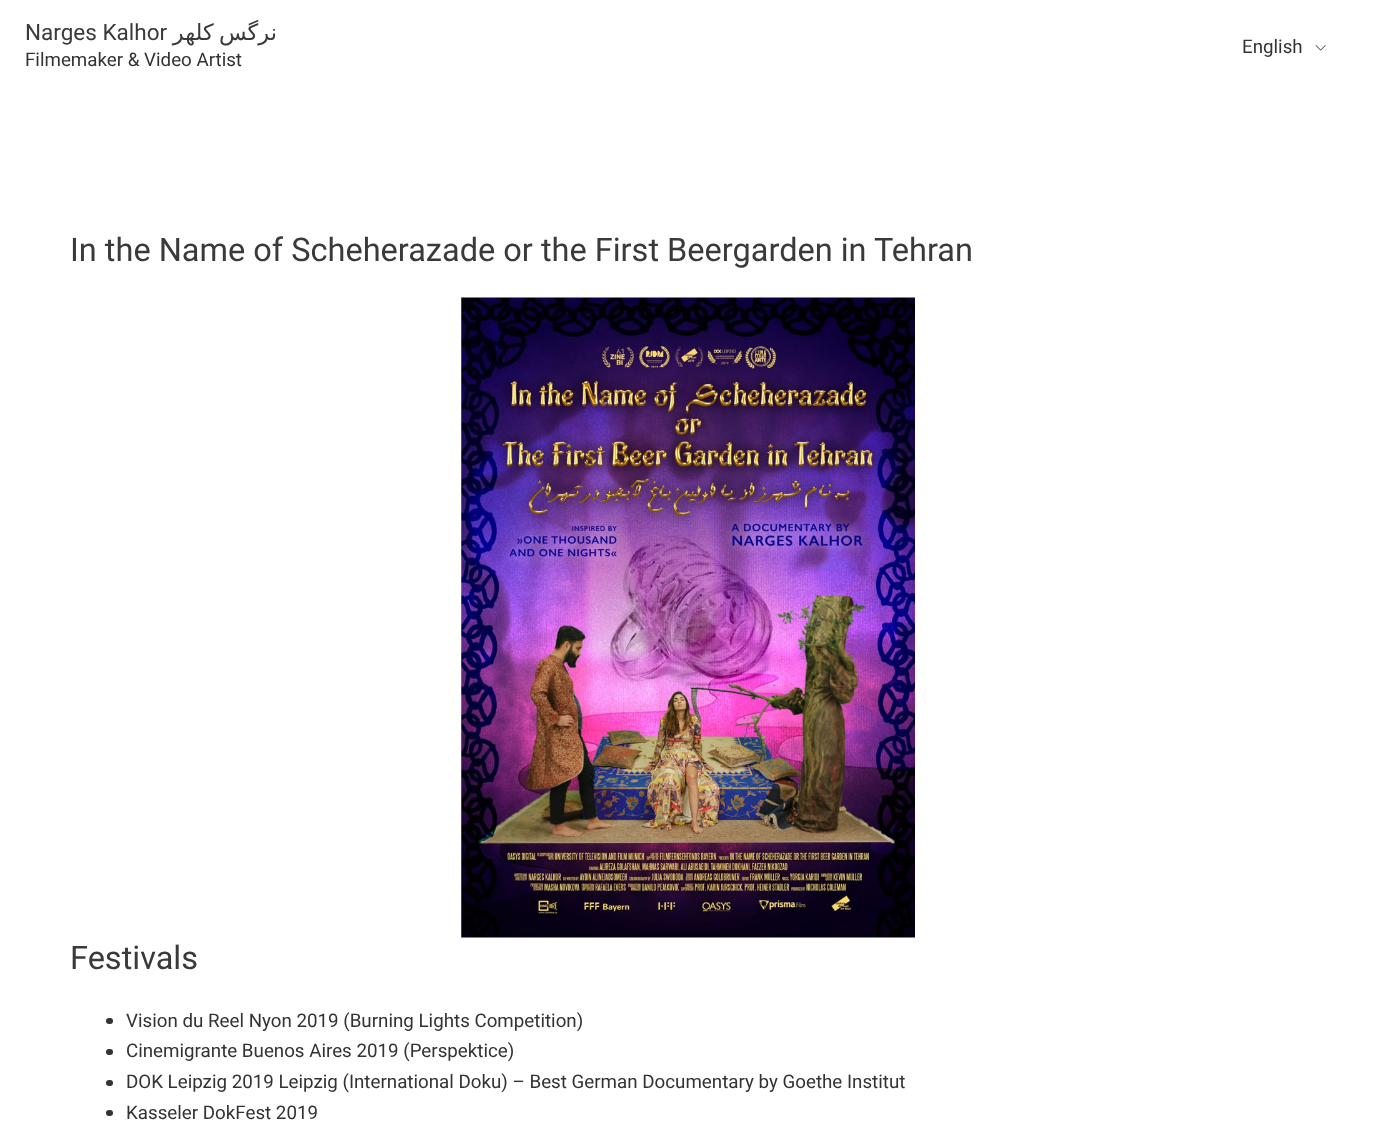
<!DOCTYPE html>
<meta charset="utf-8">
<style>body { margin: 0 } canvas { display: block }</style>
<canvas id="canvas" width="1376" height="1124"></canvas>
<img id="img1" src="img_01.png" hidden>
<img id="img2" src="img_02.png" hidden>
<script>
window.onload = function () {
	const canvas = document.getElementById("canvas");
	const ctx = canvas.getContext("2d");
	ctx.miterLimit = 4;
	ctx.fontKerning = "normal";
	function txt(s, x, y) {
		ctx.fillText(s, x, y);
	}
	function fill(x, y, w, h) {
		ctx.fillRect(x, y, w, h);
	}
	function round(x, y, w, h, r) {
		ctx.beginPath();
		ctx.roundRect(x, y, w, h, r);
		ctx.fill();
	}
	function img(id, x, y, w, h) {
		ctx.drawImage(document.getElementById(id), x, y, w, h);
	}

	ctx.fillStyle = "#FFFFFF";
	fill(0, 0, 1376, 1124);
	img("img1", 1315, 45, 11, 6);
	img("img2", 461, 297, 454, 641);
	ctx.fillStyle = "#333333";
	round(106, 1018, 7, 6, 3);
	round(106, 1049, 7, 6, 3);
	round(106, 1080, 7, 6, 3);
	round(106, 1110, 7, 6, 3);
	ctx.font = "22.5px Roboto";
	ctx.fillStyle = "#3A3A3A";
	txt("Narges Kalhor", 25, 40);
	ctx.wordSpacing = "-2px";
	ctx.direction = "rtl";
	ctx.font = "22.5px DejaVu Sans";
	txt("نرگس کلهر", 277, 40);
	ctx.wordSpacing = "0px";
	ctx.direction = "ltr";
	ctx.font = "18.75px Roboto";
	ctx.fillStyle = "#333333";
	txt("Filmemaker & Video Artist", 25, 66);
	txt("English", 1242, 53);
	ctx.font = "32.5px Roboto";
	ctx.fillStyle = "#3A3A3A";
	txt("In the Name of Scheherazade or the First Beergarden in Tehran", 70, 261);
	txt("Festivals", 70, 969);
	ctx.font = "18.75px Roboto";
	ctx.fillStyle = "#333333";
	txt("Vision du Reel Nyon 2019 (Burning Lights Competition)", 126, 1027);
	txt("Cinemigrante Buenos Aires 2019 (Perspektice)", 126, 1057);
	txt("DOK Leipzig 2019 Leipzig (International Doku) – Best German Documentary by Goethe Institut", 126, 1088);
	txt("Kasseler DokFest 2019", 126, 1119);
};
</script>
